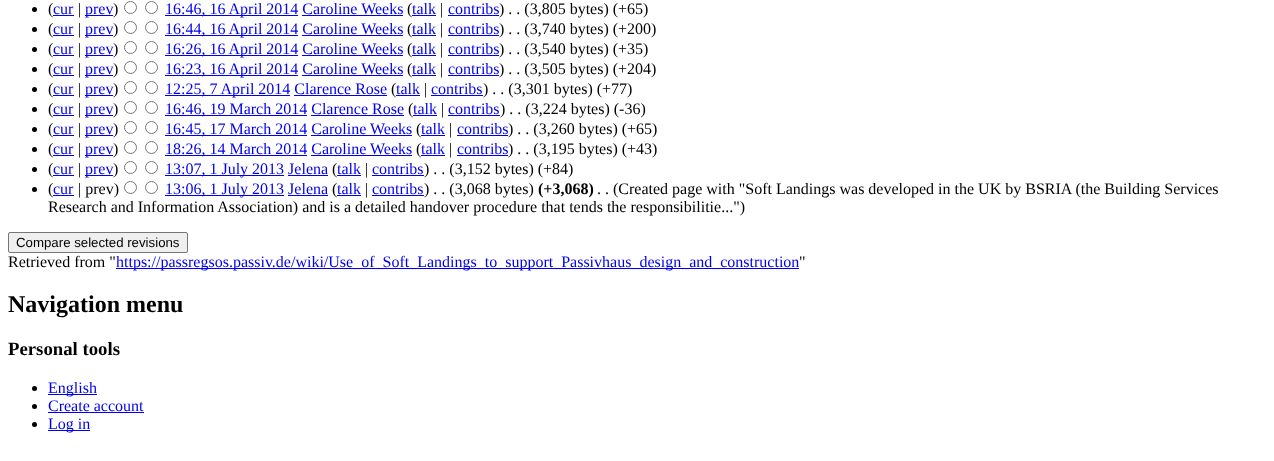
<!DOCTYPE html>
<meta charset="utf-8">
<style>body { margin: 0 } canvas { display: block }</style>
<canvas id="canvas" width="1274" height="461"></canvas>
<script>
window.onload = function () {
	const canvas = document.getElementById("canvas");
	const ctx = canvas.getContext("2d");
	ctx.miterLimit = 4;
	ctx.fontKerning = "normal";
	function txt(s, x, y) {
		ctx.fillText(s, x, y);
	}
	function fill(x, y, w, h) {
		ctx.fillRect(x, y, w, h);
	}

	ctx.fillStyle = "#FFFFFF";
	fill(0, 0, 1274, 461);
	ctx.fillStyle = "#000000";
	ctx.beginPath();
	ctx.arc(34.5, 9.5, 2.5, 0, Math.PI * 2);
	ctx.fill();
	ctx.fillStyle = "#0000EE";
	fill(53, 15, 21, 1);
	fill(85, 15, 28, 1);
	ctx.beginPath();
	ctx.arc(130.5, 7.5, 6, 0, Math.PI * 2);
	ctx.strokeStyle = "#767676";
	ctx.stroke();
	ctx.beginPath();
	ctx.arc(151.5, 7.5, 6, 0, Math.PI * 2);
	ctx.stroke();
	fill(165, 15, 133, 1);
	fill(302, 15, 101, 1);
	fill(412, 15, 24, 1);
	fill(448, 15, 51, 1);
	ctx.fillStyle = "#000000";
	ctx.beginPath();
	ctx.arc(34.5, 29.5, 2.5, 0, Math.PI * 2);
	ctx.fill();
	ctx.fillStyle = "#0000EE";
	fill(53, 35, 21, 1);
	fill(85, 35, 28, 1);
	ctx.beginPath();
	ctx.arc(130.5, 27.5, 6, 0, Math.PI * 2);
	ctx.stroke();
	ctx.beginPath();
	ctx.arc(151.5, 27.5, 6, 0, Math.PI * 2);
	ctx.stroke();
	fill(165, 35, 133, 1);
	fill(302, 35, 101, 1);
	fill(412, 35, 24, 1);
	fill(448, 35, 51, 1);
	ctx.fillStyle = "#000000";
	ctx.beginPath();
	ctx.arc(34.5, 49.5, 2.5, 0, Math.PI * 2);
	ctx.fill();
	ctx.fillStyle = "#0000EE";
	fill(53, 55, 21, 1);
	fill(85, 55, 28, 1);
	ctx.beginPath();
	ctx.arc(130.5, 47.5, 6, 0, Math.PI * 2);
	ctx.stroke();
	ctx.beginPath();
	ctx.arc(151.5, 47.5, 6, 0, Math.PI * 2);
	ctx.stroke();
	fill(165, 55, 133, 1);
	fill(302, 55, 101, 1);
	fill(412, 55, 24, 1);
	fill(448, 55, 51, 1);
	ctx.fillStyle = "#000000";
	ctx.beginPath();
	ctx.arc(34.5, 69.5, 2.5, 0, Math.PI * 2);
	ctx.fill();
	ctx.fillStyle = "#0000EE";
	fill(53, 75, 21, 1);
	fill(85, 75, 28, 1);
	ctx.beginPath();
	ctx.arc(130.5, 67.5, 6, 0, Math.PI * 2);
	ctx.stroke();
	ctx.beginPath();
	ctx.arc(151.5, 67.5, 6, 0, Math.PI * 2);
	ctx.stroke();
	fill(165, 75, 133, 1);
	fill(302, 75, 101, 1);
	fill(412, 75, 24, 1);
	fill(448, 75, 51, 1);
	ctx.fillStyle = "#000000";
	ctx.beginPath();
	ctx.arc(34.5, 89.5, 2.5, 0, Math.PI * 2);
	ctx.fill();
	ctx.fillStyle = "#0000EE";
	fill(53, 95, 21, 1);
	fill(85, 95, 28, 1);
	ctx.beginPath();
	ctx.arc(130.5, 87.5, 6, 0, Math.PI * 2);
	ctx.stroke();
	ctx.beginPath();
	ctx.arc(151.5, 87.5, 6, 0, Math.PI * 2);
	ctx.stroke();
	fill(165, 95, 125, 1);
	fill(294, 95, 93, 1);
	fill(396, 95, 24, 1);
	fill(431, 95, 52, 1);
	ctx.fillStyle = "#000000";
	ctx.beginPath();
	ctx.arc(34.5, 109.5, 2.5, 0, Math.PI * 2);
	ctx.fill();
	ctx.fillStyle = "#0000EE";
	fill(53, 115, 21, 1);
	fill(85, 115, 28, 1);
	ctx.beginPath();
	ctx.arc(130.5, 107.5, 6, 0, Math.PI * 2);
	ctx.stroke();
	ctx.beginPath();
	ctx.arc(151.5, 107.5, 6, 0, Math.PI * 2);
	ctx.stroke();
	fill(165, 115, 142, 1);
	fill(311, 115, 93, 1);
	fill(413, 115, 24, 1);
	fill(448, 115, 52, 1);
	ctx.fillStyle = "#000000";
	ctx.beginPath();
	ctx.arc(34.5, 129.5, 2.5, 0, Math.PI * 2);
	ctx.fill();
	ctx.fillStyle = "#0000EE";
	fill(53, 135, 21, 1);
	fill(85, 135, 28, 1);
	ctx.beginPath();
	ctx.arc(130.5, 127.5, 6, 0, Math.PI * 2);
	ctx.stroke();
	ctx.beginPath();
	ctx.arc(151.5, 127.5, 6, 0, Math.PI * 2);
	ctx.stroke();
	fill(165, 135, 142, 1);
	fill(311, 135, 101, 1);
	fill(421, 135, 24, 1);
	fill(457, 135, 51, 1);
	ctx.fillStyle = "#000000";
	ctx.beginPath();
	ctx.arc(34.5, 149.5, 2.5, 0, Math.PI * 2);
	ctx.fill();
	ctx.fillStyle = "#0000EE";
	fill(53, 155, 21, 1);
	fill(85, 155, 28, 1);
	ctx.beginPath();
	ctx.arc(130.5, 147.5, 6, 0, Math.PI * 2);
	ctx.stroke();
	ctx.beginPath();
	ctx.arc(151.5, 147.5, 6, 0, Math.PI * 2);
	ctx.stroke();
	fill(165, 155, 142, 1);
	fill(311, 155, 101, 1);
	fill(421, 155, 24, 1);
	fill(457, 155, 51, 1);
	ctx.fillStyle = "#000000";
	ctx.beginPath();
	ctx.arc(34.5, 169.5, 2.5, 0, Math.PI * 2);
	ctx.fill();
	ctx.fillStyle = "#0000EE";
	fill(53, 175, 21, 1);
	fill(85, 175, 28, 1);
	ctx.beginPath();
	ctx.arc(130.5, 167.5, 6, 0, Math.PI * 2);
	ctx.stroke();
	ctx.beginPath();
	ctx.arc(151.5, 167.5, 6, 0, Math.PI * 2);
	ctx.stroke();
	fill(165, 175, 119, 1);
	fill(288, 175, 40, 1);
	fill(337, 175, 24, 1);
	fill(372, 175, 52, 1);
	ctx.fillStyle = "#000000";
	ctx.beginPath();
	ctx.arc(34.5, 189.5, 2.5, 0, Math.PI * 2);
	ctx.fill();
	ctx.fillStyle = "#0000EE";
	fill(53, 195, 21, 1);
	ctx.beginPath();
	ctx.arc(130.5, 187.5, 6, 0, Math.PI * 2);
	ctx.stroke();
	ctx.beginPath();
	ctx.arc(151.5, 187.5, 6, 0, Math.PI * 2);
	ctx.stroke();
	fill(165, 195, 119, 1);
	fill(288, 195, 40, 1);
	fill(337, 195, 24, 1);
	fill(372, 195, 52, 1);
	ctx.fillStyle = "#EFEFEF";
	ctx.beginPath();
	ctx.roundRect(8.5, 232.5, 179, 20, 1.5);
	ctx.fill();
	ctx.stroke();
	ctx.fillStyle = "#0000EE";
	fill(116, 268, 683, 1);
	ctx.fillStyle = "#000000";
	ctx.beginPath();
	ctx.arc(34.5, 388.5, 2.5, 0, Math.PI * 2);
	ctx.fill();
	ctx.fillStyle = "#0000EE";
	fill(48, 394, 49, 1);
	ctx.fillStyle = "#000000";
	ctx.beginPath();
	ctx.arc(34.5, 406.5, 2.5, 0, Math.PI * 2);
	ctx.fill();
	ctx.fillStyle = "#0000EE";
	fill(48, 412, 96, 1);
	ctx.fillStyle = "#000000";
	ctx.beginPath();
	ctx.arc(34.5, 424.5, 2.5, 0, Math.PI * 2);
	ctx.fill();
	ctx.fillStyle = "#0000EE";
	fill(48, 430, 42, 1);
	ctx.font = "16px Liberation Serif";
	ctx.fillStyle = "#000000";
	txt("(", 48, 14);
	ctx.fillStyle = "#0000EE";
	txt("cur", 53, 14);
	ctx.fillStyle = "#000000";
	txt("|", 78, 14);
	ctx.fillStyle = "#0000EE";
	txt("prev", 85, 14);
	ctx.fillStyle = "#000000";
	txt(")", 113, 14);
	ctx.fillStyle = "#0000EE";
	txt("16:46, 16 April 2014 Caroline Weeks", 165, 14);
	ctx.fillStyle = "#000000";
	txt("(", 407, 14);
	ctx.fillStyle = "#0000EE";
	txt("talk", 412, 14);
	ctx.fillStyle = "#000000";
	txt("|", 440, 14);
	ctx.fillStyle = "#0000EE";
	txt("contribs", 448, 14);
	ctx.fillStyle = "#000000";
	txt(") . . (3,805 bytes) (+65)", 499, 14);
	txt("(", 48, 34);
	ctx.fillStyle = "#0000EE";
	txt("cur", 53, 34);
	ctx.fillStyle = "#000000";
	txt("|", 78, 34);
	ctx.fillStyle = "#0000EE";
	txt("prev", 85, 34);
	ctx.fillStyle = "#000000";
	txt(")", 113, 34);
	ctx.fillStyle = "#0000EE";
	txt("16:44, 16 April 2014 Caroline Weeks", 165, 34);
	ctx.fillStyle = "#000000";
	txt("(", 407, 34);
	ctx.fillStyle = "#0000EE";
	txt("talk", 412, 34);
	ctx.fillStyle = "#000000";
	txt("|", 440, 34);
	ctx.fillStyle = "#0000EE";
	txt("contribs", 448, 34);
	ctx.fillStyle = "#000000";
	txt(") . . (3,740 bytes) (+200)", 499, 34);
	txt("(", 48, 54);
	ctx.fillStyle = "#0000EE";
	txt("cur", 53, 54);
	ctx.fillStyle = "#000000";
	txt("|", 78, 54);
	ctx.fillStyle = "#0000EE";
	txt("prev", 85, 54);
	ctx.fillStyle = "#000000";
	txt(")", 113, 54);
	ctx.fillStyle = "#0000EE";
	txt("16:26, 16 April 2014 Caroline Weeks", 165, 54);
	ctx.fillStyle = "#000000";
	txt("(", 407, 54);
	ctx.fillStyle = "#0000EE";
	txt("talk", 412, 54);
	ctx.fillStyle = "#000000";
	txt("|", 440, 54);
	ctx.fillStyle = "#0000EE";
	txt("contribs", 448, 54);
	ctx.fillStyle = "#000000";
	txt(") . . (3,540 bytes) (+35)", 499, 54);
	txt("(", 48, 74);
	ctx.fillStyle = "#0000EE";
	txt("cur", 53, 74);
	ctx.fillStyle = "#000000";
	txt("|", 78, 74);
	ctx.fillStyle = "#0000EE";
	txt("prev", 85, 74);
	ctx.fillStyle = "#000000";
	txt(")", 113, 74);
	ctx.fillStyle = "#0000EE";
	txt("16:23, 16 April 2014 Caroline Weeks", 165, 74);
	ctx.fillStyle = "#000000";
	txt("(", 407, 74);
	ctx.fillStyle = "#0000EE";
	txt("talk", 412, 74);
	ctx.fillStyle = "#000000";
	txt("|", 440, 74);
	ctx.fillStyle = "#0000EE";
	txt("contribs", 448, 74);
	ctx.fillStyle = "#000000";
	txt(") . . (3,505 bytes) (+204)", 499, 74);
	txt("(", 48, 94);
	ctx.fillStyle = "#0000EE";
	txt("cur", 53, 94);
	ctx.fillStyle = "#000000";
	txt("|", 78, 94);
	ctx.fillStyle = "#0000EE";
	txt("prev", 85, 94);
	ctx.fillStyle = "#000000";
	txt(")", 113, 94);
	ctx.fillStyle = "#0000EE";
	txt("12:25, 7 April 2014 Clarence Rose", 165, 94);
	ctx.fillStyle = "#000000";
	txt("(", 391, 94);
	ctx.fillStyle = "#0000EE";
	txt("talk", 396, 94);
	ctx.fillStyle = "#000000";
	txt("|", 424, 94);
	ctx.fillStyle = "#0000EE";
	txt("contribs", 431, 94);
	ctx.fillStyle = "#000000";
	txt(") . . (3,301 bytes) (+77)", 483, 94);
	txt("(", 48, 114);
	ctx.fillStyle = "#0000EE";
	txt("cur", 53, 114);
	ctx.fillStyle = "#000000";
	txt("|", 78, 114);
	ctx.fillStyle = "#0000EE";
	txt("prev", 85, 114);
	ctx.fillStyle = "#000000";
	txt(")", 113, 114);
	ctx.fillStyle = "#0000EE";
	txt("16:46, 19 March 2014 Clarence Rose", 165, 114);
	ctx.fillStyle = "#000000";
	txt("(", 408, 114);
	ctx.fillStyle = "#0000EE";
	txt("talk", 413, 114);
	ctx.fillStyle = "#000000";
	txt("|", 441, 114);
	ctx.fillStyle = "#0000EE";
	txt("contribs", 448, 114);
	ctx.fillStyle = "#000000";
	txt(") . . (3,224 bytes) (-36)", 500, 114);
	txt("(", 48, 134);
	ctx.fillStyle = "#0000EE";
	txt("cur", 53, 134);
	ctx.fillStyle = "#000000";
	txt("|", 78, 134);
	ctx.fillStyle = "#0000EE";
	txt("prev", 85, 134);
	ctx.fillStyle = "#000000";
	txt(")", 113, 134);
	ctx.fillStyle = "#0000EE";
	txt("16:45, 17 March 2014 Caroline Weeks", 165, 134);
	ctx.fillStyle = "#000000";
	txt("(", 416, 134);
	ctx.fillStyle = "#0000EE";
	txt("talk", 421, 134);
	ctx.fillStyle = "#000000";
	txt("|", 449, 134);
	ctx.fillStyle = "#0000EE";
	txt("contribs", 457, 134);
	ctx.fillStyle = "#000000";
	txt(") . . (3,260 bytes) (+65)", 508, 134);
	txt("(", 48, 154);
	ctx.fillStyle = "#0000EE";
	txt("cur", 53, 154);
	ctx.fillStyle = "#000000";
	txt("|", 78, 154);
	ctx.fillStyle = "#0000EE";
	txt("prev", 85, 154);
	ctx.fillStyle = "#000000";
	txt(")", 113, 154);
	ctx.fillStyle = "#0000EE";
	txt("18:26, 14 March 2014 Caroline Weeks", 165, 154);
	ctx.fillStyle = "#000000";
	txt("(", 416, 154);
	ctx.fillStyle = "#0000EE";
	txt("talk", 421, 154);
	ctx.fillStyle = "#000000";
	txt("|", 449, 154);
	ctx.fillStyle = "#0000EE";
	txt("contribs", 457, 154);
	ctx.fillStyle = "#000000";
	txt(") . . (3,195 bytes) (+43)", 508, 154);
	txt("(", 48, 174);
	ctx.fillStyle = "#0000EE";
	txt("cur", 53, 174);
	ctx.fillStyle = "#000000";
	txt("|", 78, 174);
	ctx.fillStyle = "#0000EE";
	txt("prev", 85, 174);
	ctx.fillStyle = "#000000";
	txt(")", 113, 174);
	ctx.fillStyle = "#0000EE";
	txt("13:07, 1 July 2013 Jelena", 165, 174);
	ctx.fillStyle = "#000000";
	txt("(", 332, 174);
	ctx.fillStyle = "#0000EE";
	txt("talk", 337, 174);
	ctx.fillStyle = "#000000";
	txt("|", 365, 174);
	ctx.fillStyle = "#0000EE";
	txt("contribs", 372, 174);
	ctx.fillStyle = "#000000";
	txt(") . . (3,152 bytes) (+84)", 424, 174);
	txt("(", 48, 194);
	ctx.fillStyle = "#0000EE";
	txt("cur", 53, 194);
	ctx.fillStyle = "#000000";
	txt("| prev)", 78, 194);
	ctx.fillStyle = "#0000EE";
	txt("13:06, 1 July 2013 Jelena", 165, 194);
	ctx.fillStyle = "#000000";
	txt("(", 332, 194);
	ctx.fillStyle = "#0000EE";
	txt("talk", 337, 194);
	ctx.fillStyle = "#000000";
	txt("|", 365, 194);
	ctx.fillStyle = "#0000EE";
	txt("contribs", 372, 194);
	ctx.fillStyle = "#000000";
	txt(") . . (3,068 bytes)", 424, 194);
	ctx.font = "bold 16px Liberation Serif";
	txt("(+3,068)", 538, 194);
	ctx.font = "16px Liberation Serif";
	txt(". . (Created page with \"Soft Landings was developed in the UK by BSRIA (the Building Services", 597, 194);
	txt("Research and Information Association) and is a detailed handover procedure that tends the responsibilitie...\")", 48, 212);
	ctx.font = "13.25px Liberation Sans";
	txt("Compare selected revisions", 16, 247);
	ctx.font = "16px Liberation Serif";
	txt("Retrieved from \"", 8, 267);
	ctx.fillStyle = "#0000EE";
	txt("https://passregsos.passiv.de/wiki/Use_of_Soft_Landings_to_support_Passivhaus_design_and_construction", 116, 267);
	ctx.fillStyle = "#000000";
	txt("\"", 799, 267);
	ctx.font = "bold 24px Liberation Serif";
	txt("Navigation menu", 8, 312);
	ctx.font = "bold 18.75px Liberation Serif";
	txt("Personal tools", 8, 355);
	ctx.font = "16px Liberation Serif";
	ctx.fillStyle = "#0000EE";
	txt("English", 48, 393);
	txt("Create account", 48, 411);
	txt("Log in", 48, 429);
};
</script>
